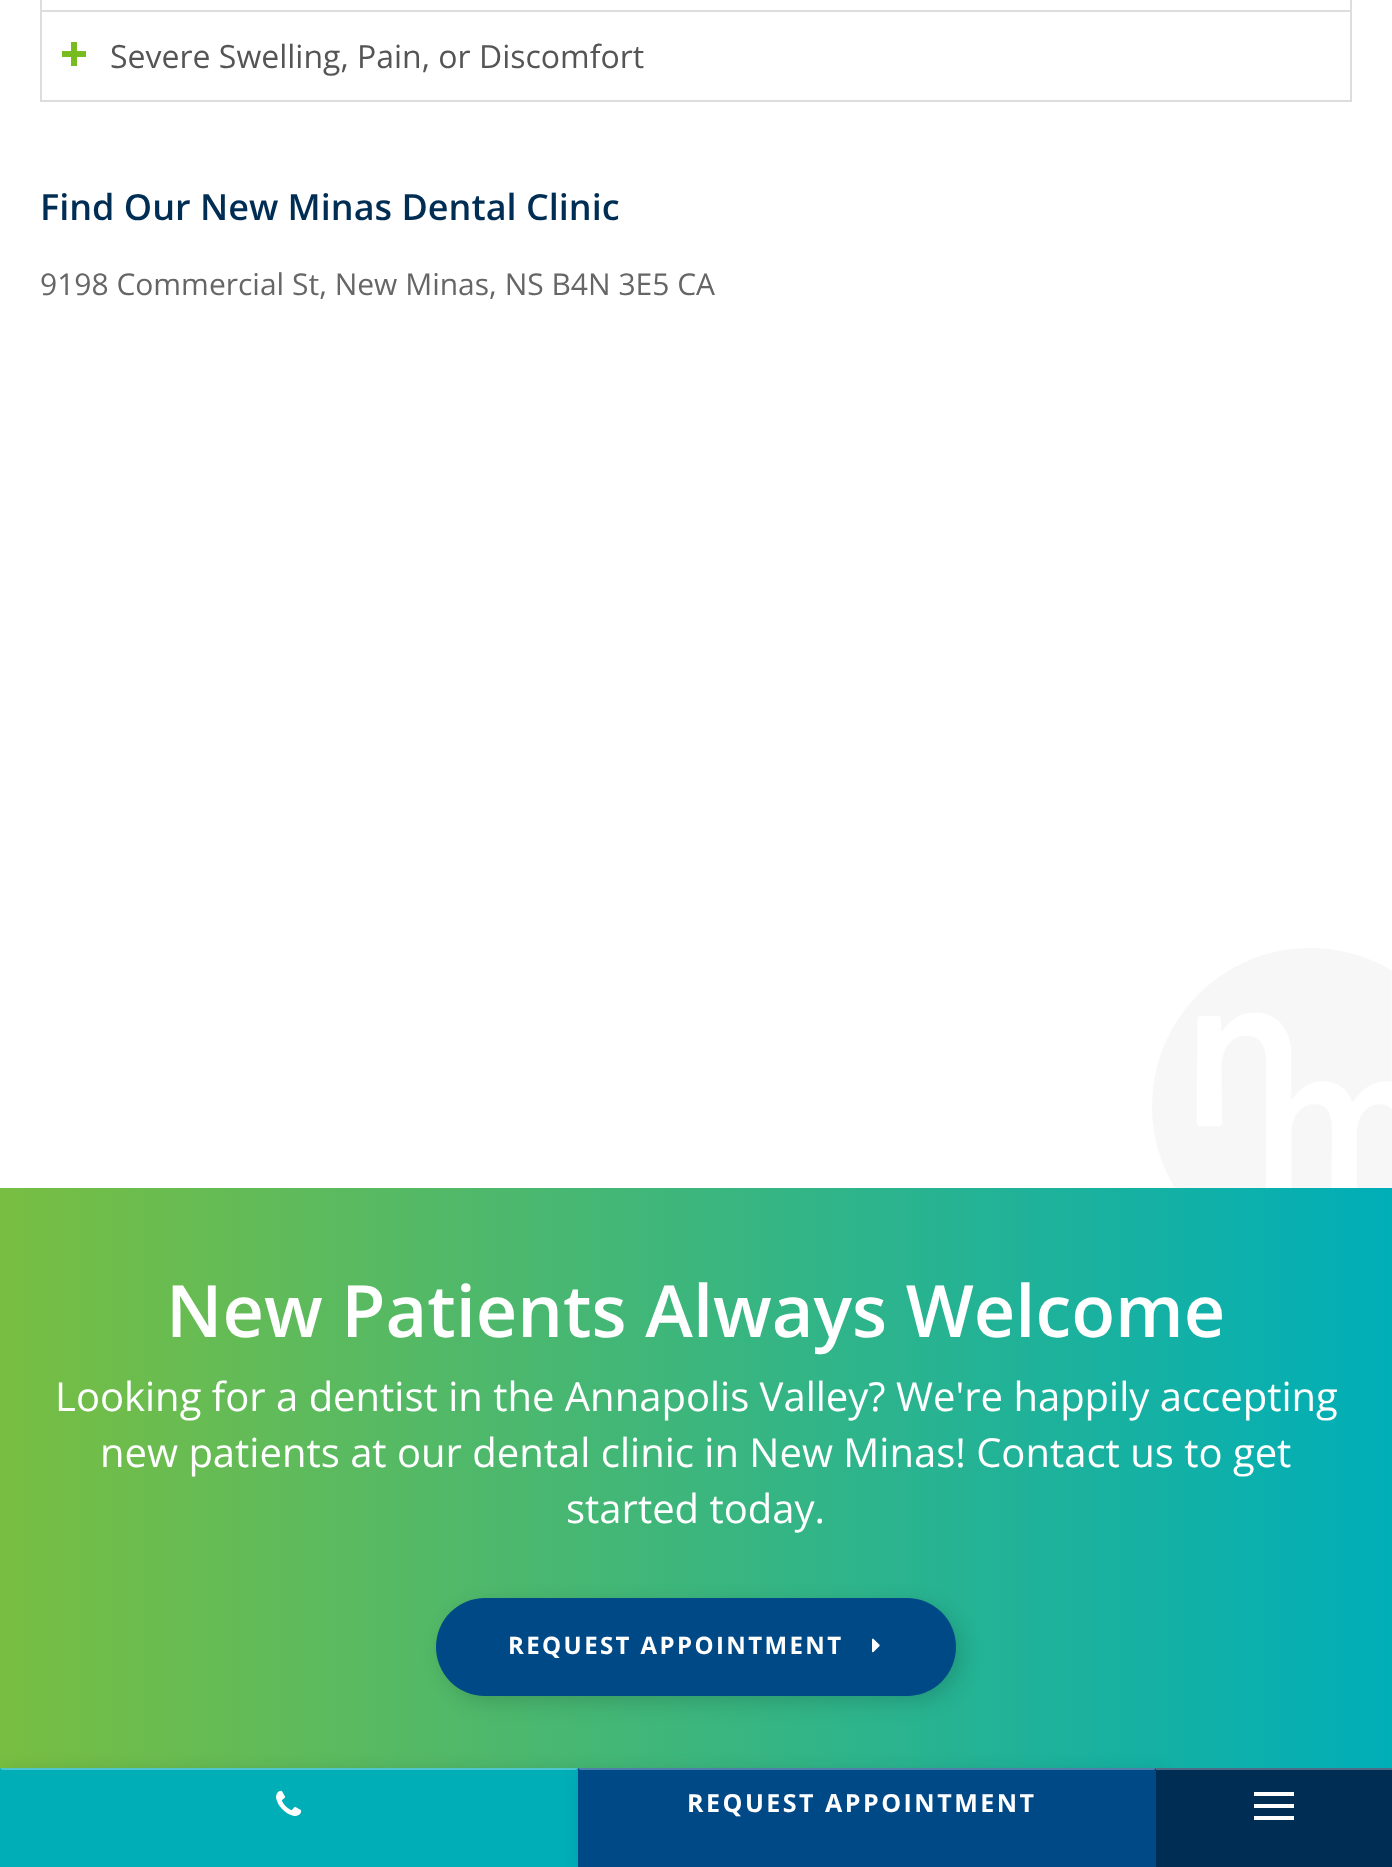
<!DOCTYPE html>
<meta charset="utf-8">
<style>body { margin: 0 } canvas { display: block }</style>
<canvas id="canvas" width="1392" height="1867"></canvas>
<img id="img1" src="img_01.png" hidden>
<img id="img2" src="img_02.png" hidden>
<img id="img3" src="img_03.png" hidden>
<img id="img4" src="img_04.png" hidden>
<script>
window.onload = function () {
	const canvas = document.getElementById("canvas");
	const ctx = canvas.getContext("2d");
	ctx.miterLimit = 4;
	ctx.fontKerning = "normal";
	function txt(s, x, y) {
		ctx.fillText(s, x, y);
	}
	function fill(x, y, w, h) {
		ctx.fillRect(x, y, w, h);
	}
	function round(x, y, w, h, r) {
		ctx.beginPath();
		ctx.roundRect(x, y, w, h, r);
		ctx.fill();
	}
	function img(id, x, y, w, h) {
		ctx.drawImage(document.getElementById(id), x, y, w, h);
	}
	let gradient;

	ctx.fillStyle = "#FFFFFF";
	fill(0, 0, 1392, 1867);
	ctx.fillStyle = "#DDDDDD";
	fill(1350, 0, 2, 102);
	fill(40, 10, 1312, 2);
	fill(40, 0, 2, 12);
	img("img1", 62, 42, 24, 24);
	fill(40, 100, 1312, 2);
	fill(40, 12, 2, 90);
	gradient = ctx.createLinearGradient(0, 1497, 1392, 1497);
	gradient.addColorStop(0, "#78BE42");
	gradient.addColorStop(1, "#00AEB8");
	ctx.fillStyle = gradient;
	fill(0, 1188, 1392, 580);
	img("img2", 1152, 948, 240, 240);
	ctx.fillStyle = "rgba(0, 0, 0, 0.15)";
	ctx.filter = "blur(10px)";
	ctx.beginPath();
	ctx.roundRect(442, 1604, 520, 98, 49);
	ctx.fill();
	ctx.filter = "none";
	ctx.fillStyle = "#004987";
	round(436, 1598, 520, 98, 49);
	img("img3", 872, 1638, 8, 15);
	ctx.fillStyle = "rgba(0, 0, 0, 0.15)";
	ctx.filter = "blur(10px)";
	ctx.beginPath();
	ctx.rect(6, 1774, 578, 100);
	ctx.fill();
	ctx.filter = "none";
	ctx.fillStyle = "#00AEB8";
	fill(0, 1768, 578, 99);
	ctx.fillStyle = "#4DC6CD";
	ctx.beginPath();
	ctx.moveTo(0, 1768);
	ctx.lineTo(578, 1768);
	ctx.lineTo(576, 1770);
	ctx.lineTo(2, 1770);
	ctx.closePath();
	ctx.fill();
	img("img4", 276, 1790, 26, 26);
	ctx.fillStyle = "rgba(0, 0, 0, 0.15)";
	ctx.filter = "blur(10px)";
	ctx.beginPath();
	ctx.rect(584, 1774, 578, 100);
	ctx.fill();
	ctx.filter = "none";
	ctx.fillStyle = "#004987";
	fill(578, 1768, 578, 99);
	ctx.fillStyle = "#4D80AB";
	ctx.beginPath();
	ctx.moveTo(578, 1768);
	ctx.lineTo(1156, 1768);
	ctx.lineTo(1154, 1770);
	ctx.lineTo(580, 1770);
	ctx.closePath();
	ctx.fill();
	ctx.fillStyle = "#002D54";
	fill(1156, 1770, 236, 97);
	ctx.fillStyle = "#4D6C87";
	fill(1156, 1768, 236, 2);
	ctx.fillStyle = "#FFFFFF";
	fill(1254, 1792, 40, 4);
	fill(1254, 1804, 40, 4);
	fill(1254, 1816, 40, 4);
	ctx.font = "32px Open Sans";
	ctx.fillStyle = "#555555";
	txt("Severe Swelling, Pain, or Discomfort", 110, 68);
	ctx.font = "600 36px Open Sans";
	ctx.fillStyle = "#002D54";
	txt("Find Our New Minas Dental Clinic", 40, 220);
	ctx.font = "30px Open Sans";
	ctx.fillStyle = "#666666";
	txt("9198 Commercial St, New Minas, NS B4N 3E5 CA", 40, 295);
	ctx.font = "600 72px Open Sans";
	ctx.fillStyle = "#FFFFFF";
	txt("New Patients Always Welcome", 166, 1337);
	ctx.font = "40px Open Sans";
	txt("Looking for a dentist in the Annapolis Valley? We're happily accepting", 55, 1411);
	txt("new patients at our dental clinic in New Minas! Contact us to get", 100, 1467);
	txt("started today.", 566, 1523);
	ctx.letterSpacing = "2.4px";
	ctx.font = "bold 24px Open Sans";
	txt("REQUEST APPOINTMENT", 508, 1654);
	ctx.letterSpacing = "2.5px";
	ctx.font = "bold 25px Open Sans";
	txt("REQUEST APPOINTMENT", 687, 1812);
};
</script>
